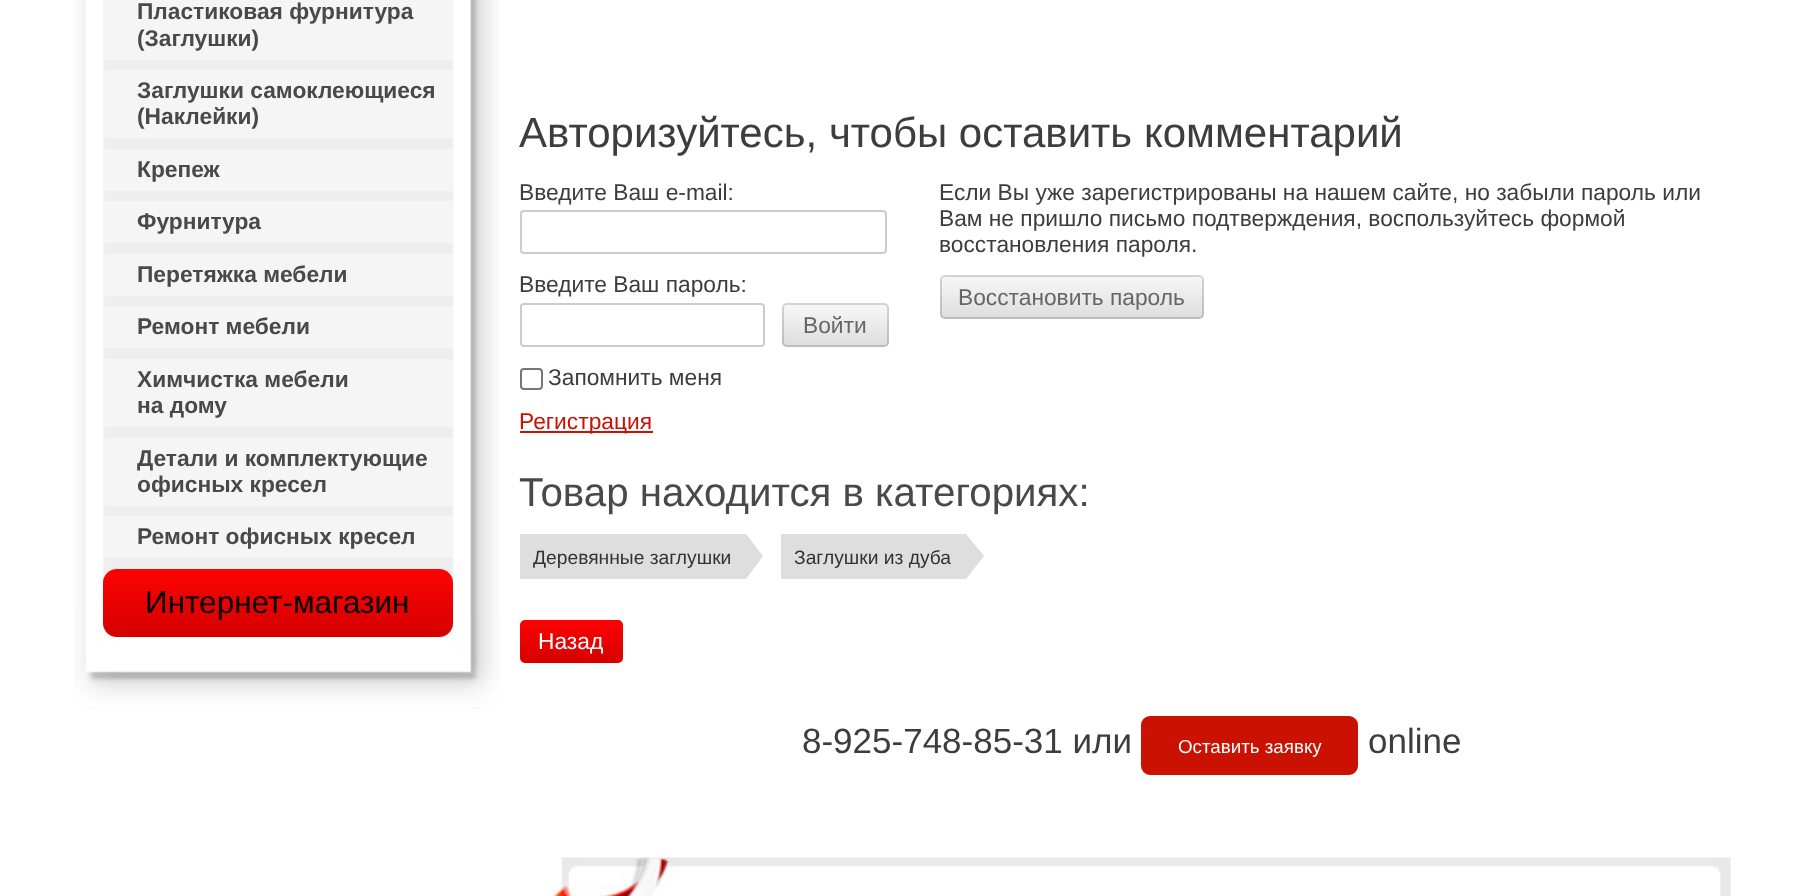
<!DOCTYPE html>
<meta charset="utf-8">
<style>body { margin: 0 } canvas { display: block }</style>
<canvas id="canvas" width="1807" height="896"></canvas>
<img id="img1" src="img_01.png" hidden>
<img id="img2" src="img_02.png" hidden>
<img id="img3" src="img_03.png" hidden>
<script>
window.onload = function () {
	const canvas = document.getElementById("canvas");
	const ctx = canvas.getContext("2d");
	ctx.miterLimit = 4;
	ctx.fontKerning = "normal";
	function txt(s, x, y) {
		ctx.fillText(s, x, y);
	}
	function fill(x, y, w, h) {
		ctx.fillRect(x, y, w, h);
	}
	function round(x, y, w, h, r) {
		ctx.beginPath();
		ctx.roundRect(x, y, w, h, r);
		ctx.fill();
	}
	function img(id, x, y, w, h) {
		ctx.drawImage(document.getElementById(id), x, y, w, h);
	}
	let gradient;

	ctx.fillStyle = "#FFFFFF";
	fill(0, 0, 1807, 896);
	img("img1", 75, 0, 424, 709);
	img("img2", 74, 615, 426, 94);
	ctx.fillStyle = "#F5F5F5";
	fill(104, 0, 349, 60);
	fill(104, 70, 349, 68);
	fill(104, 149, 349, 42);
	fill(104, 201, 349, 42);
	fill(104, 254, 349, 42);
	fill(104, 306, 349, 42);
	fill(104, 359, 349, 68);
	fill(104, 438, 349, 68);
	fill(104, 516, 349, 42);
	gradient = ctx.createLinearGradient(278, 569, 278, 637);
	gradient.addColorStop(0, "#FD0202");
	gradient.addColorStop(1, "#D50000");
	ctx.fillStyle = gradient;
	round(103, 569, 350, 68, 14);
	ctx.beginPath();
	ctx.roundRect(521, 211, 365, 42, 3);
	ctx.strokeStyle = "#CCCCCC";
	ctx.lineWidth = 2;
	ctx.stroke();
	ctx.beginPath();
	ctx.roundRect(521, 304, 243, 42, 3);
	ctx.stroke();
	gradient = ctx.createLinearGradient(836, 303, 836, 347);
	gradient.addColorStop(0, "#F8F8F8");
	gradient.addColorStop(1, "#DDDDDD");
	ctx.fillStyle = gradient;
	round(782, 303, 107, 44, 5);
	ctx.beginPath();
	ctx.roundRect(783, 304, 105, 42, 4);
	ctx.strokeStyle = "rgba(0, 0, 0, 0.15)";
	ctx.stroke();
	ctx.beginPath();
	ctx.roundRect(521, 369, 21, 20, 3);
	ctx.strokeStyle = "#767676";
	ctx.stroke();
	ctx.fillStyle = "#CA1102";
	fill(520, 431, 133, 2);
	gradient = ctx.createLinearGradient(1072, 275, 1072, 319);
	gradient.addColorStop(0, "#F8F8F8");
	gradient.addColorStop(1, "#DDDDDD");
	ctx.fillStyle = gradient;
	round(940, 275, 264, 44, 5);
	ctx.beginPath();
	ctx.roundRect(941, 276, 262, 42, 4);
	ctx.strokeStyle = "rgba(0, 0, 0, 0.15)";
	ctx.stroke();
	ctx.fillStyle = "#DEDEDE";
	fill(520, 534, 226, 45);
	ctx.beginPath();
	ctx.moveTo(746, 579);
	ctx.lineTo(746, 534);
	ctx.lineTo(763, 556);
	ctx.closePath();
	ctx.fill();
	fill(781, 534, 185, 45);
	ctx.beginPath();
	ctx.moveTo(966, 579);
	ctx.lineTo(966, 534);
	ctx.lineTo(984, 556);
	ctx.closePath();
	ctx.fill();
	gradient = ctx.createLinearGradient(571, 620, 571, 663);
	gradient.addColorStop(0, "#FD0202");
	gradient.addColorStop(1, "#D60000");
	ctx.fillStyle = gradient;
	round(520, 620, 103, 43, 5);
	ctx.fillStyle = "#CA1102";
	ctx.beginPath();
	ctx.roundRect(1142, 717, 215, 57, 8);
	ctx.fill();
	ctx.strokeStyle = "#CA1102";
	ctx.stroke();
	img("img3", 552, 857, 1179, 39);
	ctx.font = "bold 22.75px Liberation Sans";
	ctx.fillStyle = "#494949";
	txt("Пластиковая фурнитура", 137, 19);
	txt("(Заглушки)", 137, 46);
	txt("Заглушки самоклеющиеся", 137, 98);
	txt("(Наклейки)", 137, 124);
	txt("Крепеж", 137, 177);
	txt("Фурнитура", 137, 229);
	txt("Перетяжка мебели", 137, 282);
	txt("Ремонт мебели", 137, 334);
	txt("Химчистка мебели", 137, 387);
	txt("на дому", 137, 413);
	txt("Детали и комплектующие", 137, 466);
	txt("офисных кресел", 137, 492);
	txt("Ремонт офисных кресел", 137, 544);
	ctx.font = "31.5px Liberation Sans";
	ctx.fillStyle = "#000000";
	txt("Интернет-магазин", 145, 613);
	ctx.font = "42px Liberation Sans";
	ctx.fillStyle = "#3D3D3D";
	txt("Авторизуйтесь, чтобы оставить комментарий", 519, 147);
	ctx.font = "22.75px Liberation Sans";
	txt("Введите Ваш e-mail:", 519, 200);
	txt("Введите Ваш пароль:", 519, 292);
	ctx.fillStyle = "#666666";
	txt("Войти", 803, 333);
	ctx.fillStyle = "#3D3D3D";
	txt("Запомнить меня", 548, 385);
	ctx.fillStyle = "#CA1102";
	txt("Регистрация", 519, 429);
	ctx.fillStyle = "#3D3D3D";
	txt("Если Вы уже зарегистрированы на нашем сайте, но забыли пароль или", 939, 200);
	txt("Вам не пришло письмо подтверждения, воспользуйтесь формой", 939, 226);
	txt("восстановления пароля.", 939, 252);
	ctx.fillStyle = "#666666";
	txt("Восстановить пароль", 958, 305);
	ctx.font = "40.25px Liberation Sans";
	ctx.fillStyle = "#494949";
	txt("Товар находится в категориях:", 519, 506);
	ctx.font = "19.25px Liberation Sans";
	ctx.fillStyle = "#333333";
	txt("Деревянные заглушки", 533, 564);
	txt("Заглушки из дуба", 794, 564);
	ctx.font = "22.75px Liberation Sans";
	ctx.fillStyle = "#FFFFFF";
	txt("Назад", 538, 649);
	ctx.font = "35px Liberation Sans";
	ctx.fillStyle = "#3D3D3D";
	txt("8-925-748-85-31 или", 802, 753);
	ctx.font = "18.75px Liberation Sans";
	ctx.fillStyle = "#FFFFFF";
	txt("Оставить заявку", 1178, 753);
	ctx.font = "35px Liberation Sans";
	ctx.fillStyle = "#3D3D3D";
	txt("online", 1368, 753);
};
</script>
